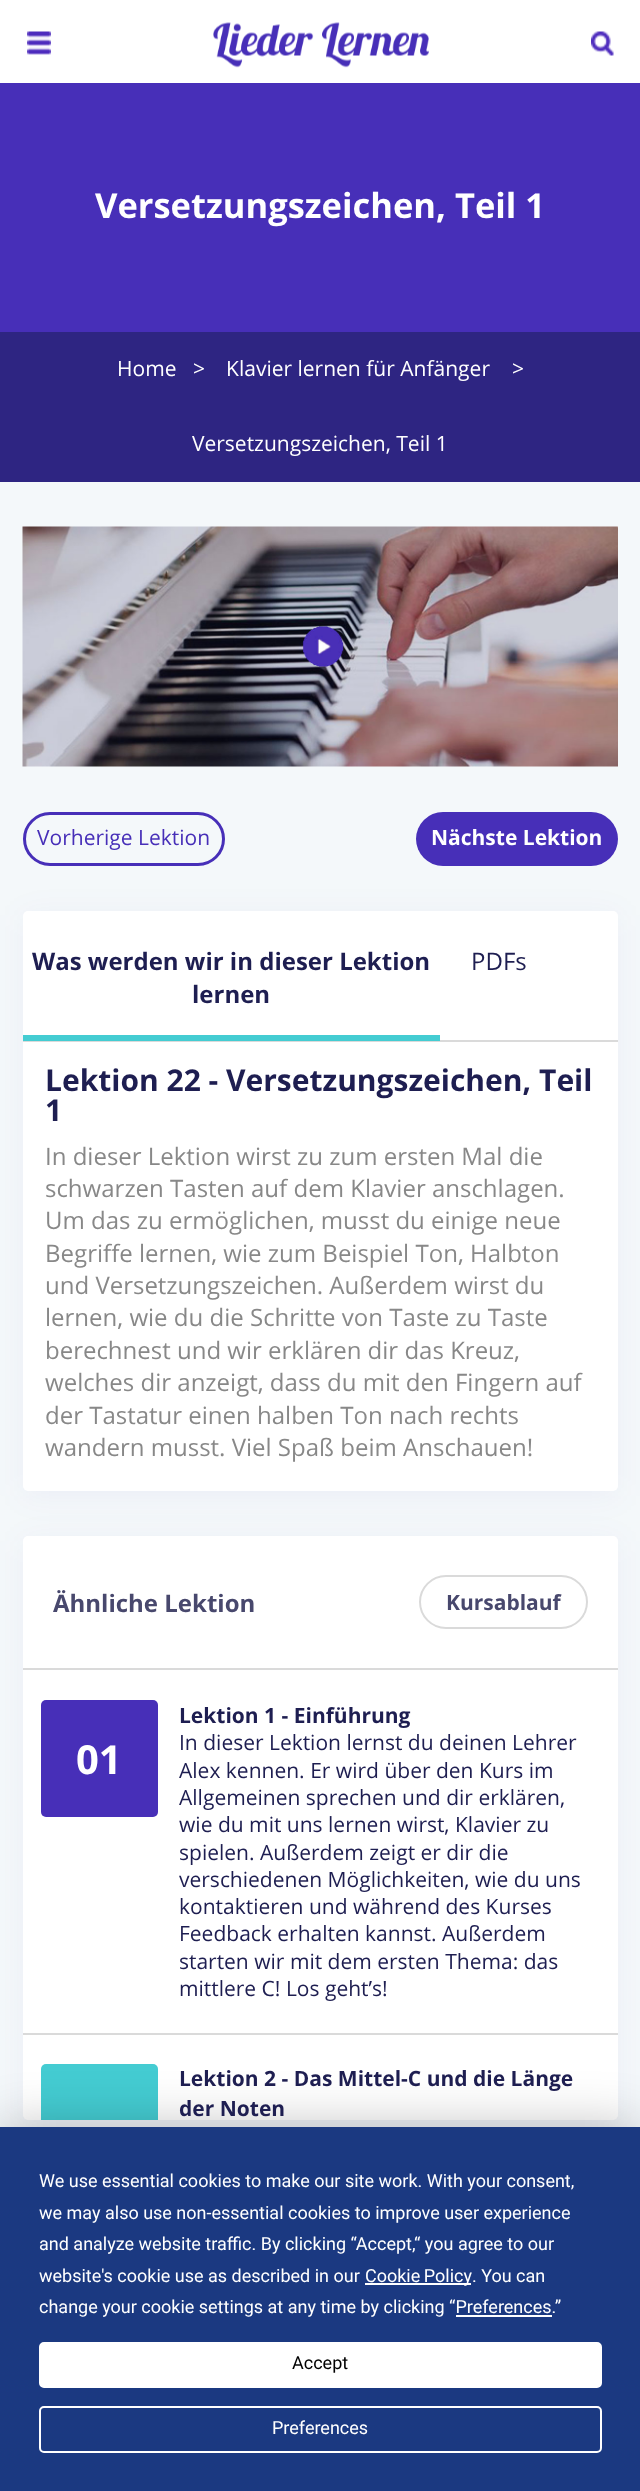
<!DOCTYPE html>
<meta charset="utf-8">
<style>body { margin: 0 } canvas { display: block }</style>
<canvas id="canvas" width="640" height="2491"></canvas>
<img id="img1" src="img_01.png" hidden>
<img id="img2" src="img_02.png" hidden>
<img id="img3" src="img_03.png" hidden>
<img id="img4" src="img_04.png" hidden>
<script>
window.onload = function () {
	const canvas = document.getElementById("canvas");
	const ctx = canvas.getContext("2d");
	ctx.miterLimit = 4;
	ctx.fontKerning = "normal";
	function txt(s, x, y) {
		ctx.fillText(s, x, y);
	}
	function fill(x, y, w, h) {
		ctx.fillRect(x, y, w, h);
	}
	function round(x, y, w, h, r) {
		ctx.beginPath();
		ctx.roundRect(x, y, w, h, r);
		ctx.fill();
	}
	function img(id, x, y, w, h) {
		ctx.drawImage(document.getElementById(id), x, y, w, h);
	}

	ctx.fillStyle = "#472FB8";
	fill(0, 0, 640, 2491);
	ctx.fillStyle = "#FFFFFF";
	fill(0, 0, 640, 83);
	img("img1", 27, 31, 24, 24);
	img("img2", 213, 22, 216, 46);
	img("img3", 591, 31, 23, 25);
	ctx.fillStyle = "#2E2582";
	fill(0, 332, 640, 150);
	ctx.fillStyle = "#F4F8FA";
	fill(0, 482, 640, 1645);
	img("img4", 22, 526, 596, 241);
	ctx.beginPath();
	ctx.roundRect(24.5, 813.5, 199, 51, 25.5);
	ctx.strokeStyle = "#472FB8";
	ctx.lineWidth = 3;
	ctx.stroke();
	ctx.fillStyle = "#472FB8";
	round(416, 812, 202, 54, 27);
	ctx.fillStyle = "rgba(71, 47, 184, 0.05)";
	ctx.filter = "blur(15.5px)";
	ctx.beginPath();
	ctx.roundRect(23, 915, 595, 581, 5);
	ctx.fill();
	ctx.filter = "none";
	ctx.fillStyle = "#FFFFFF";
	round(23, 911, 595, 580, 5);
	ctx.fillStyle = "#DADADA";
	fill(23, 1040, 595, 2);
	ctx.fillStyle = "#44CCD2";
	fill(23, 1035, 417, 6);
	ctx.fillStyle = "rgba(71, 47, 184, 0.05)";
	ctx.filter = "blur(15.5px)";
	ctx.beginPath();
	ctx.roundRect(23, 1541, 595, 583, 5);
	ctx.fill();
	ctx.filter = "none";
	ctx.fillStyle = "#FFFFFF";
	round(23, 1536, 595, 584, 5);
	ctx.fillStyle = "#DADADA";
	fill(23, 1668, 595, 2);
	ctx.beginPath();
	ctx.roundRect(420, 1576, 167, 52, 26);
	ctx.strokeStyle = "#DADADA";
	ctx.lineWidth = 2;
	ctx.stroke();
	ctx.fillStyle = "#472FB8";
	round(41, 1700, 117, 117, 5);
	ctx.fillStyle = "#DADADA";
	fill(23, 2033, 595, 2);
	ctx.fillStyle = "#44CCD2";
	ctx.beginPath();
	ctx.roundRect(41, 2064, 117, 56, [5, 5, 0, 0]);
	ctx.fill();
	ctx.fillStyle = "rgba(0, 0, 0, 0.25)";
	ctx.filter = "blur(26px)";
	ctx.beginPath();
	ctx.rect(0, 2127, 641, 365);
	ctx.fill();
	ctx.filter = "none";
	ctx.fillStyle = "#1B3981";
	fill(0, 2127, 640, 364);
	ctx.fillStyle = "#FFFFFF";
	fill(365, 2283, 106, 2);
	fill(456, 2315, 96, 2);
	ctx.beginPath();
	ctx.roundRect(40, 2343, 561, 44, 4);
	ctx.fill();
	ctx.strokeStyle = "#FFFFFF";
	ctx.stroke();
	ctx.beginPath();
	ctx.roundRect(40, 2407, 561, 45, 4);
	ctx.stroke();
	ctx.font = "bold 34.5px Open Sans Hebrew";
	txt("Versetzungszeichen, Teil 1", 95, 218);
	ctx.font = "21px Open Sans Hebrew";
	txt("Home", 117, 376);
	txt(">", 193, 376);
	txt("Klavier lernen für Anfänger", 226, 376);
	txt(">", 512, 376);
	txt("Versetzungszeichen, Teil 1", 192, 451);
	ctx.fillStyle = "#472FB8";
	txt("Vorherige Lektion", 37, 845);
	ctx.font = "bold 21px Open Sans Hebrew";
	ctx.fillStyle = "#FFFFFF";
	txt("Nächste Lektion", 431, 845);
	ctx.font = "bold 24px Open Sans Hebrew";
	ctx.fillStyle = "#1E1E51";
	txt("Was werden wir in dieser Lektion", 32, 970);
	txt("lernen", 192, 1003);
	ctx.font = "24px Open Sans Hebrew";
	txt("PDFs", 471, 970);
	ctx.font = "bold 30px Open Sans Hebrew";
	txt("Lektion 22 - Versetzungszeichen, Teil", 45, 1091);
	txt("1", 45, 1121);
	ctx.font = "24px Open Sans Hebrew";
	ctx.fillStyle = "#888888";
	txt("In dieser Lektion wirst zu zum ersten Mal die", 45, 1165);
	txt("schwarzen Tasten auf dem Klavier anschlagen.", 45, 1197);
	txt("Um das zu ermöglichen, musst du einige neue", 45, 1229);
	txt("Begriffe lernen, wie zum Beispiel Ton, Halbton", 45, 1262);
	txt("und Versetzungszeichen. Außerdem wirst du", 45, 1294);
	txt("lernen, wie du die Schritte von Taste zu Taste", 45, 1326);
	txt("berechnest und wir erklären dir das Kreuz,", 45, 1359);
	txt("welches dir anzeigt, dass du mit den Fingern auf", 45, 1391);
	txt("der Tastatur einen halben Ton nach rechts", 45, 1424);
	txt("wandern musst. Viel Spaß beim Anschauen!", 45, 1456);
	ctx.font = "bold 24px Open Sans Hebrew";
	ctx.fillStyle = "#48486D";
	txt("Ähnliche Lektion", 53, 1612);
	ctx.font = "bold 21px Open Sans Hebrew";
	txt("Kursablauf", 446, 1610);
	ctx.fillStyle = "#1E1E51";
	txt("Lektion 1 - Einführung", 179, 1723);
	ctx.font = "bold 40px Open Sans Hebrew";
	ctx.fillStyle = "#FFFFFF";
	txt("01", 76, 1774);
	ctx.font = "21px Open Sans Hebrew";
	ctx.fillStyle = "#1E1E51";
	txt("In dieser Lektion lernst du deinen Lehrer", 179, 1750);
	txt("Alex kennen. Er wird über den Kurs im", 179, 1778);
	txt("Allgemeinen sprechen und dir erklären,", 179, 1805);
	txt("wie du mit uns lernen wirst, Klavier zu", 179, 1832);
	txt("spielen. Außerdem zeigt er dir die", 179, 1860);
	txt("verschiedenen Möglichkeiten, wie du uns", 179, 1887);
	txt("kontaktieren und während des Kurses", 179, 1914);
	txt("Feedback erhalten kannst. Außerdem", 179, 1941);
	txt("starten wir mit dem ersten Thema: das", 179, 1969);
	txt("mittlere C! Los geht’s!", 179, 1996);
	ctx.font = "bold 21px Open Sans Hebrew";
	txt("Lektion 2 - Das Mittel-C und die Länge", 179, 2086);
	txt("der Noten", 179, 2116);
	ctx.font = "18px Roboto";
	ctx.fillStyle = "#FFFFFF";
	txt("We use essential cookies to make our site work. With your consent,", 39, 2187);
	txt("we may also use non-essential cookies to improve user experience", 39, 2219);
	txt("and analyze website traffic. By clicking “Accept,“ you agree to our", 39, 2250);
	txt("website's cookie use as described in our", 39, 2282);
	ctx.wordSpacing = "-1px";
	txt("Cookie Policy", 365, 2282);
	ctx.wordSpacing = "0px";
	txt(". You can", 472, 2282);
	txt("change your cookie settings at any time by clicking “Preferences.”", 39, 2313);
	ctx.fillStyle = "#000000";
	txt("Accept", 292, 2369);
	ctx.fillStyle = "#FFFFFF";
	txt("Preferences", 272, 2434);
};
</script>
